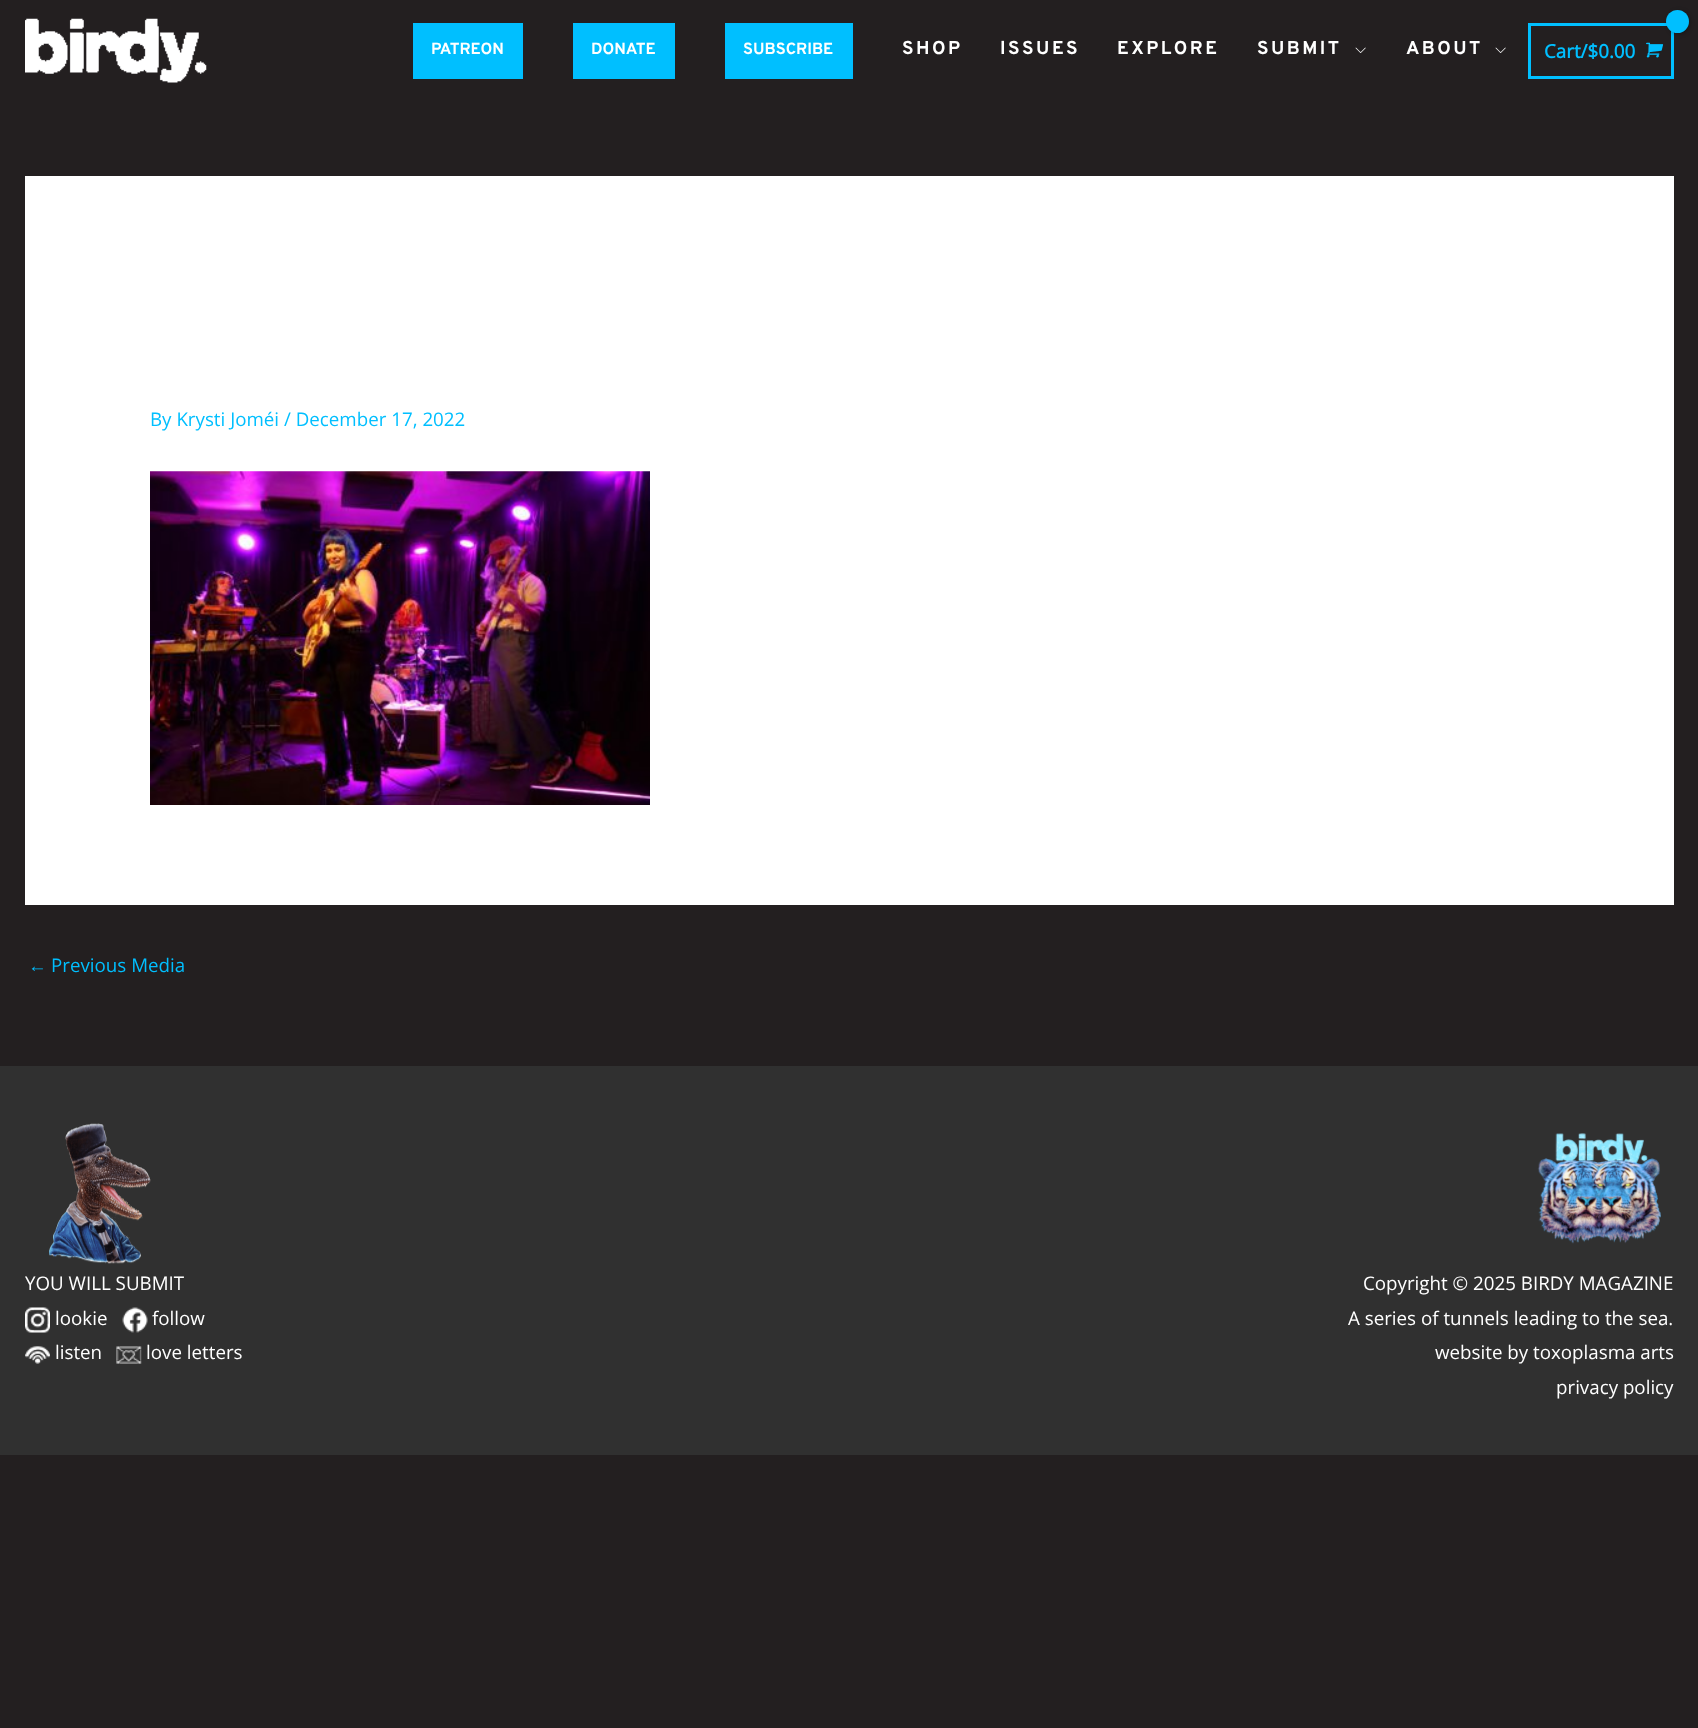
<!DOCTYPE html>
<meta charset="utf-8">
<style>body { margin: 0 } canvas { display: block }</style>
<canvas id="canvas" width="1698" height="1728"></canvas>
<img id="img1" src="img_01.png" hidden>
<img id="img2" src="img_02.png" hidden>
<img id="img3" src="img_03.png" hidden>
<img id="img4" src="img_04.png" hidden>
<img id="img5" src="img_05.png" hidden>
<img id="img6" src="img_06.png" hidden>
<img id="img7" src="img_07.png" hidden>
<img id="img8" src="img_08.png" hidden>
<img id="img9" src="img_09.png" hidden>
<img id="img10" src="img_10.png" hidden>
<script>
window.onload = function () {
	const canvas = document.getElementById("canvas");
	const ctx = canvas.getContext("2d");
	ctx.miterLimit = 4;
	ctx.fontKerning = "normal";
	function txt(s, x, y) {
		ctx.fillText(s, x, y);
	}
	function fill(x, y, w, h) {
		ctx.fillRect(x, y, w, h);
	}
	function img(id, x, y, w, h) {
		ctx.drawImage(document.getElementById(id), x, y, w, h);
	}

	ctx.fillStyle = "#231F20";
	fill(0, 0, 1698, 1728);
	img("img1", 25, 18, 182, 65);
	ctx.fillStyle = "#00BFFF";
	fill(413, 23, 110, 56);
	fill(573, 23, 102, 56);
	fill(725, 23, 128, 56);
	img("img2", 1355, 47, 11, 6);
	img("img2", 1495, 47, 11, 6);
	ctx.strokeStyle = "#00BFFF";
	ctx.lineWidth = 3;
	ctx.strokeRect(1529.5, 24.5, 143, 53);
	ctx.fillStyle = "rgba(0, 0, 0, 0.3)";
	ctx.filter = "blur(2px)";
	ctx.beginPath();
	ctx.roundRect(1668, 11, 22, 23, 11);
	ctx.fill();
	ctx.filter = "none";
	ctx.fillStyle = "#00BFFF";
	ctx.beginPath();
	ctx.arc(1677.5, 21.5, 11.5, 0, Math.PI * 2);
	ctx.fill();
	img("img3", 1646, 42, 18, 16);
	ctx.fillStyle = "#FFFFFF";
	fill(25, 176, 1649, 729);
	img("img4", 150, 471, 500, 334);
	ctx.fillStyle = "#303030";
	fill(0, 1066, 1698, 389);
	img("img5", 49, 1123, 102, 141);
	img("img6", 25, 1307, 25, 26);
	img("img7", 122, 1307, 26, 26);
	img("img8", 25, 1346, 25, 18);
	img("img9", 116, 1346, 26, 18);
	img("img10", 1537, 1133, 124, 111);
	ctx.font = "bold 16.25px Overpass";
	ctx.fillStyle = "#FFFFFF";
	txt("PATREON", 431, 54);
	txt("DONATE", 591, 54);
	txt("SUBSCRIBE", 743, 54);
	ctx.letterSpacing = "2.5px";
	ctx.font = "bold 18.75px Overpass";
	txt("SHOP", 902, 54);
	txt("ISSUES", 1000, 54);
	txt("EXPLORE", 1117, 54);
	txt("SUBMIT", 1257, 54);
	txt("ABOUT", 1406, 54);
	ctx.letterSpacing = "0px";
	ctx.font = "bold 18.75px Open Sans";
	ctx.fillStyle = "#00BFFF";
	txt("Cart/$0.00", 1544, 58);
	ctx.font = "18.75px Open Sans";
	txt("By Krysti Joméi / December 17, 2022", 150, 426);
	ctx.font = "18.75px Liberation Sans";
	txt("←", 28, 972);
	ctx.font = "18.75px Open Sans";
	txt("Previous Media", 51, 972);
	ctx.fillStyle = "#FFFFFF";
	txt("YOU WILL SUBMIT", 25, 1290);
	txt("lookie", 55, 1325);
	txt("follow", 152, 1325);
	txt("listen", 55, 1359);
	txt("love letters", 146, 1359);
	txt("Copyright © 2025 BIRDY MAGAZINE", 1363, 1290);
	txt("A series of tunnels leading to the sea.", 1348, 1325);
	txt("website by toxoplasma arts", 1435, 1359);
	txt("privacy policy", 1556, 1394);
};
</script>
